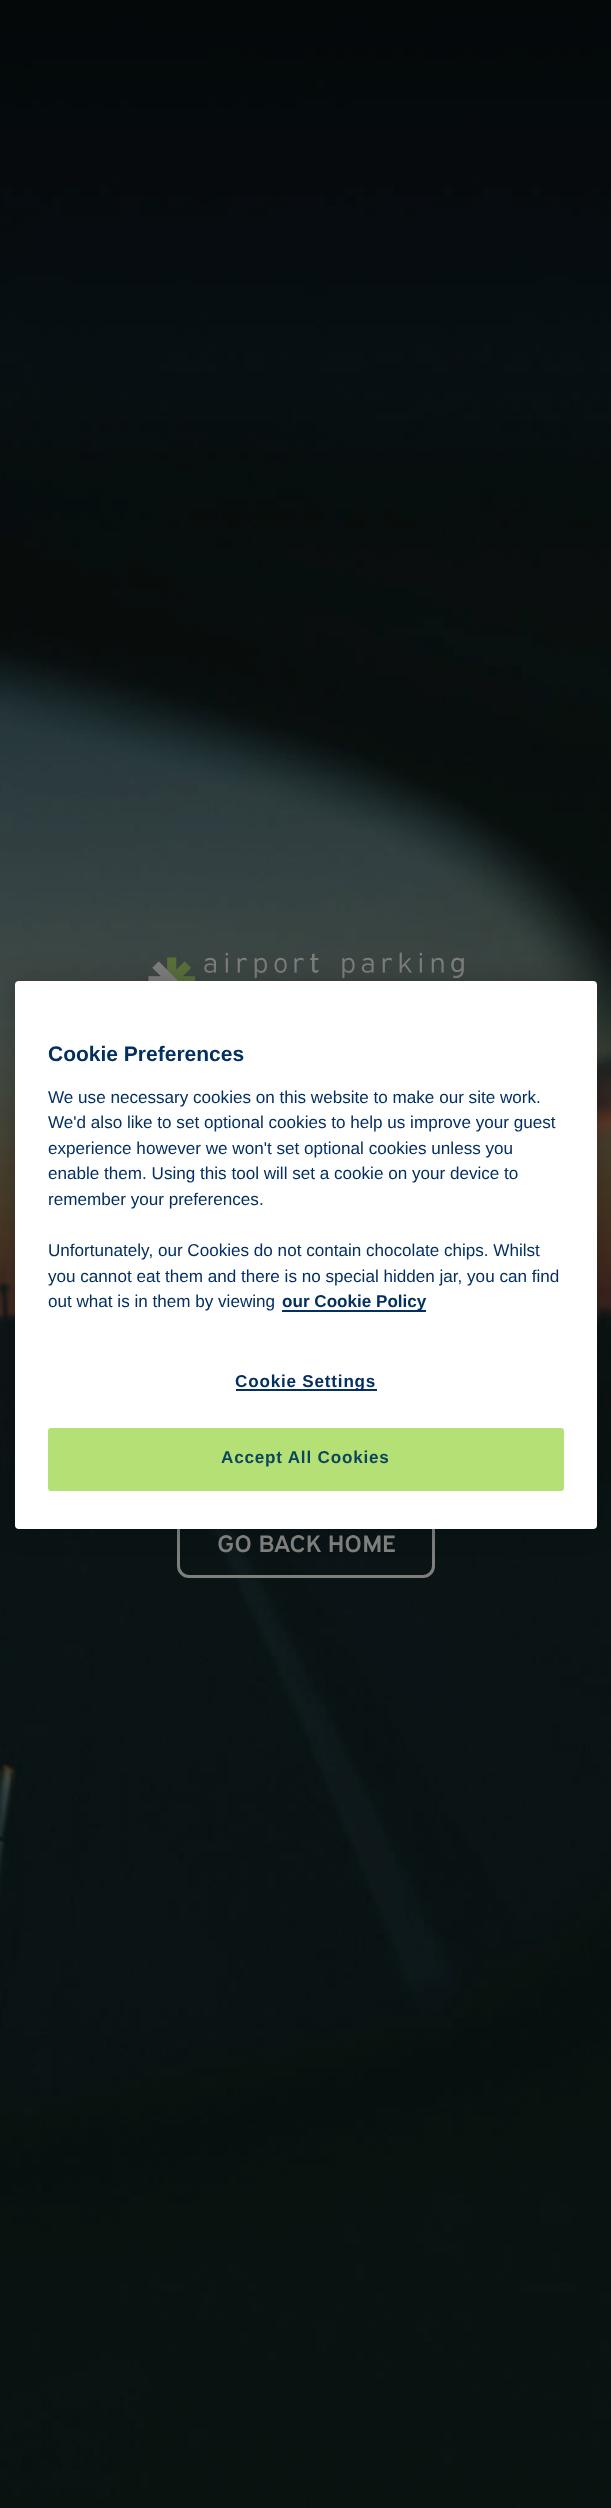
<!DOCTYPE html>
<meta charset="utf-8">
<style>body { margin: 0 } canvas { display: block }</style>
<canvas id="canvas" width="611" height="2508"></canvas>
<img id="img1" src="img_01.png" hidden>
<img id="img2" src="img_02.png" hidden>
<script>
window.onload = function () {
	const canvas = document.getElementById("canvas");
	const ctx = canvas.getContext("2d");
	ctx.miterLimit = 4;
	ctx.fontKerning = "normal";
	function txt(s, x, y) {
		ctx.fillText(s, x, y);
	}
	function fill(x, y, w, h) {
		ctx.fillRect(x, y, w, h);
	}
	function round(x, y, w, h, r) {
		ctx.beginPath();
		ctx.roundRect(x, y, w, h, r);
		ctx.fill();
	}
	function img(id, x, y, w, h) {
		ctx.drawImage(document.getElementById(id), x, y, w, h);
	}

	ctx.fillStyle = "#FFFFFF";
	fill(0, 0, 611, 2508);
	img("img1", 0, 0, 611, 2508);
	img("img2", 148, 952, 316, 29);
	ctx.beginPath();
	ctx.roundRect(178.5, 1507.5, 255, 69, 10.5);
	ctx.strokeStyle = "#7E7E7D";
	ctx.lineWidth = 3;
	ctx.stroke();
	ctx.fillStyle = "rgba(0, 0, 0, 0.2)";
	ctx.filter = "blur(13.5px)";
	ctx.beginPath();
	ctx.roundRect(15, 981, 582, 548, 4);
	ctx.fill();
	ctx.filter = "none";
	ctx.fillStyle = "#FFFFFF";
	round(15, 981, 582, 548, 4);
	ctx.fillStyle = "#032F61";
	fill(282, 1310, 144, 2);
	fill(236, 1389, 141, 2);
	ctx.fillStyle = "#B4E076";
	ctx.beginPath();
	ctx.roundRect(49, 1429, 514, 61, 2);
	ctx.fill();
	ctx.strokeStyle = "#B4E076";
	ctx.lineWidth = 2;
	ctx.stroke();
	ctx.font = "bold 21px Liberation Sans";
	ctx.fillStyle = "#032F61";
	txt("Cookie Preferences", 48, 1061);
	ctx.font = "17.1px Liberation Sans";
	txt("We use necessary cookies on this website to make our site work.", 48, 1103);
	txt("We'd also like to set optional cookies to help us improve your guest", 48, 1128);
	txt("experience however we won't set optional cookies unless you", 48, 1154);
	txt("enable them. Using this tool will set a cookie on your device to", 48, 1179);
	txt("remember your preferences.", 48, 1205);
	txt("Unfortunately, our Cookies do not contain chocolate chips. Whilst", 48, 1256);
	txt("you cannot eat them and there is no special hidden jar, you can find", 48, 1282);
	txt("out what is in them by viewing", 48, 1307);
	ctx.font = "bold 17.1px Liberation Sans";
	txt("our Cookie Policy", 282, 1307);
	ctx.letterSpacing = "0.8px";
	txt("Cookie Settings", 235, 1387);
	ctx.fillStyle = "#0A475A";
	txt("Accept All Cookies", 221, 1463);
	ctx.letterSpacing = "0px";
	ctx.font = "24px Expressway";
	ctx.fillStyle = "#7E7E7D";
	txt("GO BACK HOME", 217, 1552);
};
</script>
